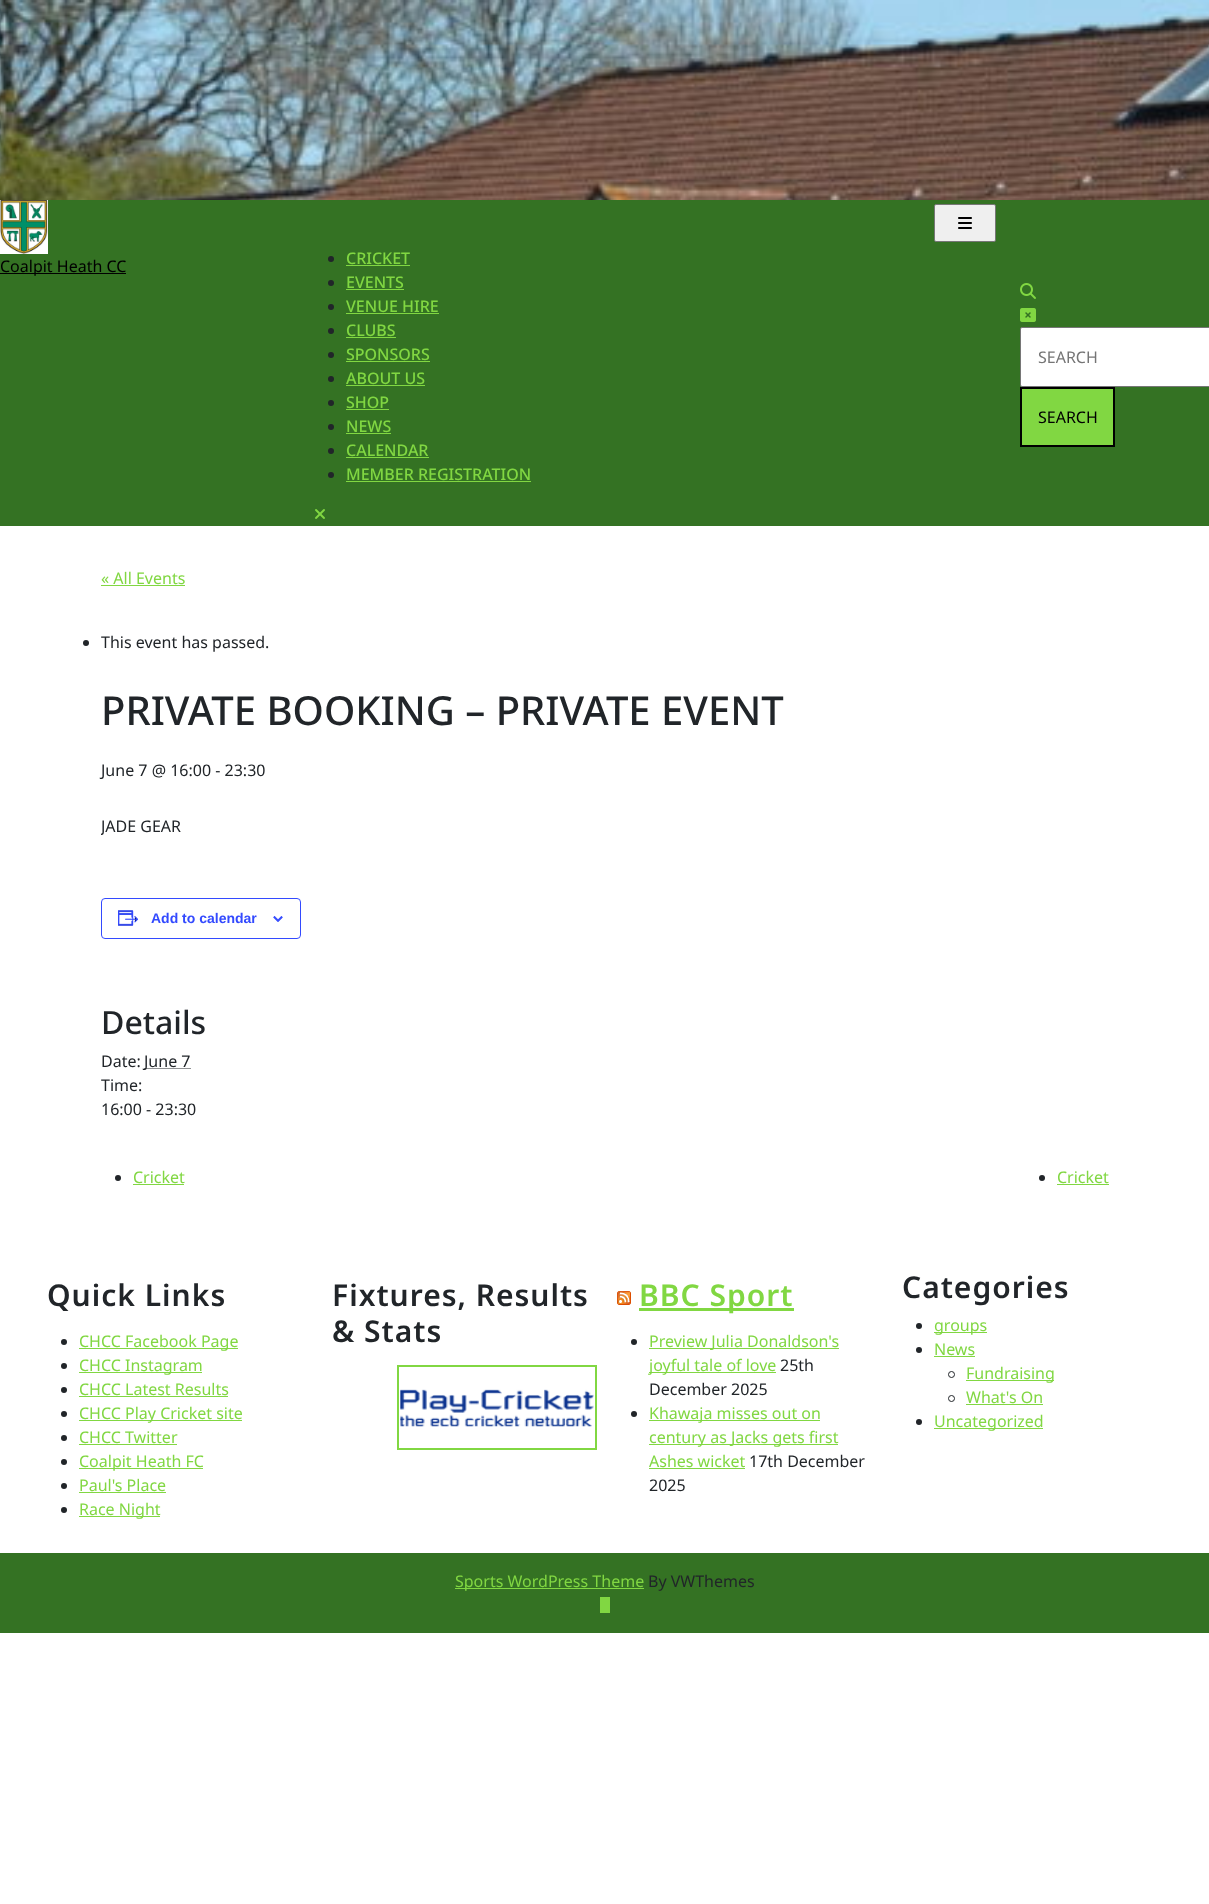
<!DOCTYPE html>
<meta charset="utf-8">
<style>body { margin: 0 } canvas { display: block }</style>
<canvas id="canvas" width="1209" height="1904"></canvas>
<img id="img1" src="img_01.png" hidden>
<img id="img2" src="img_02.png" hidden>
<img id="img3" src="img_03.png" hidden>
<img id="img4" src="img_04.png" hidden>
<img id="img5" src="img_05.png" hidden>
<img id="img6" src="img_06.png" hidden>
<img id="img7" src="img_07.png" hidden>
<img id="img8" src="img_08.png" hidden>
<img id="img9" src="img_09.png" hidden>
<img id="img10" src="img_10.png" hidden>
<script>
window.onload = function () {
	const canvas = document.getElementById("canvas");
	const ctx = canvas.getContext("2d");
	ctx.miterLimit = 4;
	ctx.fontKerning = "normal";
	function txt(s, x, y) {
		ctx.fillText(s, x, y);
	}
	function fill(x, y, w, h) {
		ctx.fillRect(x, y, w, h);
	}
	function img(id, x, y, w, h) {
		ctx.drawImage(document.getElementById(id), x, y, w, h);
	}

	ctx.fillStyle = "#FFFFFF";
	fill(0, 0, 1209, 1904);
	img("img1", 0, 0, 1209, 200);
	ctx.fillStyle = "#347223";
	fill(0, 200, 1209, 326);
	img("img2", 0, 200, 48, 54);
	ctx.fillStyle = "#000000";
	fill(0, 273, 126, 1);
	ctx.fillStyle = "#EFEFEF";
	ctx.beginPath();
	ctx.roundRect(934.5, 204.5, 61, 37, 1.5);
	ctx.fill();
	ctx.strokeStyle = "#767676";
	ctx.stroke();
	img("img3", 958, 217, 14, 12);
	ctx.fillStyle = "#212529";
	ctx.beginPath();
	ctx.arc(331, 259, 3, 0, Math.PI * 2);
	ctx.fill();
	ctx.fillStyle = "#81D742";
	fill(346, 265, 64, 1);
	ctx.fillStyle = "#212529";
	ctx.beginPath();
	ctx.arc(331, 283, 3, 0, Math.PI * 2);
	ctx.fill();
	ctx.fillStyle = "#81D742";
	fill(346, 289, 58, 1);
	ctx.fillStyle = "#212529";
	ctx.beginPath();
	ctx.arc(331, 307, 3, 0, Math.PI * 2);
	ctx.fill();
	ctx.fillStyle = "#81D742";
	fill(346, 313, 93, 1);
	ctx.fillStyle = "#212529";
	ctx.beginPath();
	ctx.arc(331, 331, 3, 0, Math.PI * 2);
	ctx.fill();
	ctx.fillStyle = "#81D742";
	fill(346, 337, 50, 1);
	ctx.fillStyle = "#212529";
	ctx.beginPath();
	ctx.arc(331, 355, 3, 0, Math.PI * 2);
	ctx.fill();
	ctx.fillStyle = "#81D742";
	fill(346, 361, 84, 1);
	ctx.fillStyle = "#212529";
	ctx.beginPath();
	ctx.arc(331, 379, 3, 0, Math.PI * 2);
	ctx.fill();
	ctx.fillStyle = "#81D742";
	fill(346, 385, 79, 1);
	ctx.fillStyle = "#212529";
	ctx.beginPath();
	ctx.arc(331, 403, 3, 0, Math.PI * 2);
	ctx.fill();
	ctx.fillStyle = "#81D742";
	fill(346, 409, 43, 1);
	ctx.fillStyle = "#212529";
	ctx.beginPath();
	ctx.arc(331, 427, 3, 0, Math.PI * 2);
	ctx.fill();
	ctx.fillStyle = "#81D742";
	fill(346, 433, 45, 1);
	ctx.fillStyle = "#212529";
	ctx.beginPath();
	ctx.arc(331, 451, 3, 0, Math.PI * 2);
	ctx.fill();
	ctx.fillStyle = "#81D742";
	fill(346, 457, 83, 1);
	ctx.fillStyle = "#212529";
	ctx.beginPath();
	ctx.arc(331, 475, 3, 0, Math.PI * 2);
	ctx.fill();
	ctx.fillStyle = "#81D742";
	fill(346, 481, 185, 1);
	img("img4", 315, 509, 10, 10);
	img("img5", 1020, 283, 16, 16);
	img("img6", 1020, 308, 16, 14);
	ctx.fillStyle = "#FFFFFF";
	ctx.beginPath();
	ctx.roundRect(1020.5, 327.5, 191, 59, 1.5);
	ctx.fill();
	ctx.stroke();
	ctx.fillStyle = "#81D742";
	ctx.beginPath();
	ctx.rect(1021, 388, 93, 58);
	ctx.fill();
	ctx.strokeStyle = "#000000";
	ctx.lineWidth = 2;
	ctx.stroke();
	fill(101, 585, 84, 1);
	ctx.fillStyle = "#212529";
	ctx.beginPath();
	ctx.arc(86, 643, 3, 0, Math.PI * 2);
	ctx.fill();
	ctx.beginPath();
	ctx.roundRect(101.5, 898.5, 199, 40, 3.5);
	ctx.strokeStyle = "#334AFF";
	ctx.lineWidth = 1;
	ctx.stroke();
	img("img7", 118, 910, 21, 16);
	img("img8", 273, 916, 10, 6);
	ctx.beginPath();
	ctx.moveTo(144.5, 1068.5);
	ctx.lineTo(191, 1068.5);
	ctx.strokeStyle = "#212529";
	ctx.setLineDash([1, 1]);
	ctx.stroke();
	ctx.beginPath();
	ctx.arc(118, 1178, 3, 0, Math.PI * 2);
	ctx.fill();
	ctx.fillStyle = "#81D742";
	fill(133, 1184, 51, 1);
	ctx.fillStyle = "#212529";
	ctx.beginPath();
	ctx.arc(1042, 1178, 3, 0, Math.PI * 2);
	ctx.fill();
	ctx.fillStyle = "#81D742";
	fill(1057, 1184, 52, 1);
	ctx.fillStyle = "#212529";
	ctx.beginPath();
	ctx.arc(64, 1342, 3, 0, Math.PI * 2);
	ctx.fill();
	ctx.fillStyle = "#81D742";
	fill(79, 1348, 159, 1);
	ctx.fillStyle = "#212529";
	ctx.beginPath();
	ctx.arc(64, 1366, 3, 0, Math.PI * 2);
	ctx.fill();
	ctx.fillStyle = "#81D742";
	fill(79, 1372, 123, 1);
	ctx.fillStyle = "#212529";
	ctx.beginPath();
	ctx.arc(64, 1390, 3, 0, Math.PI * 2);
	ctx.fill();
	ctx.fillStyle = "#81D742";
	fill(79, 1396, 149, 1);
	ctx.fillStyle = "#212529";
	ctx.beginPath();
	ctx.arc(64, 1414, 3, 0, Math.PI * 2);
	ctx.fill();
	ctx.fillStyle = "#81D742";
	fill(79, 1420, 163, 1);
	ctx.fillStyle = "#212529";
	ctx.beginPath();
	ctx.arc(64, 1438, 3, 0, Math.PI * 2);
	ctx.fill();
	ctx.fillStyle = "#81D742";
	fill(79, 1444, 98, 1);
	ctx.fillStyle = "#212529";
	ctx.beginPath();
	ctx.arc(64, 1462, 3, 0, Math.PI * 2);
	ctx.fill();
	ctx.fillStyle = "#81D742";
	fill(79, 1468, 124, 1);
	ctx.fillStyle = "#212529";
	ctx.beginPath();
	ctx.arc(64, 1486, 3, 0, Math.PI * 2);
	ctx.fill();
	ctx.fillStyle = "#81D742";
	fill(79, 1492, 87, 1);
	ctx.fillStyle = "#212529";
	ctx.beginPath();
	ctx.arc(64, 1510, 3, 0, Math.PI * 2);
	ctx.fill();
	ctx.fillStyle = "#81D742";
	fill(79, 1516, 81, 1);
	ctx.strokeStyle = "#81D742";
	ctx.lineWidth = 2;
	ctx.setLineDash([]);
	ctx.strokeRect(398, 1366, 198, 83);
	img("img9", 400, 1389, 194, 38);
	img("img10", 617, 1291, 14, 14);
	fill(639, 1308, 155, 3);
	ctx.fillStyle = "#212529";
	ctx.beginPath();
	ctx.arc(634, 1342, 3, 0, Math.PI * 2);
	ctx.fill();
	ctx.fillStyle = "#81D742";
	fill(649, 1348, 190, 1);
	fill(649, 1372, 127, 1);
	ctx.fillStyle = "#212529";
	ctx.beginPath();
	ctx.arc(634, 1414, 3, 0, Math.PI * 2);
	ctx.fill();
	ctx.fillStyle = "#81D742";
	fill(649, 1420, 171, 1);
	fill(649, 1444, 189, 1);
	fill(649, 1468, 96, 1);
	ctx.fillStyle = "#212529";
	ctx.beginPath();
	ctx.arc(919, 1326, 3, 0, Math.PI * 2);
	ctx.fill();
	ctx.fillStyle = "#81D742";
	fill(934, 1332, 53, 1);
	ctx.fillStyle = "#212529";
	ctx.beginPath();
	ctx.arc(919, 1350, 3, 0, Math.PI * 2);
	ctx.fill();
	ctx.fillStyle = "#81D742";
	fill(934, 1356, 41, 1);
	ctx.beginPath();
	ctx.arc(951.5, 1374.5, 3, 0, Math.PI * 2);
	ctx.strokeStyle = "#212529";
	ctx.lineWidth = 1;
	ctx.stroke();
	fill(966, 1380, 88, 1);
	ctx.beginPath();
	ctx.arc(951.5, 1398.5, 3, 0, Math.PI * 2);
	ctx.stroke();
	fill(966, 1404, 77, 1);
	ctx.fillStyle = "#212529";
	ctx.beginPath();
	ctx.arc(919, 1422, 3, 0, Math.PI * 2);
	ctx.fill();
	ctx.fillStyle = "#81D742";
	fill(934, 1428, 109, 1);
	ctx.fillStyle = "#347223";
	fill(0, 1553, 1209, 80);
	ctx.fillStyle = "#81D742";
	fill(455, 1588, 189, 1);
	fill(600, 1597, 10, 16);
	ctx.font = "16px Noto Sans";
	ctx.fillStyle = "#000000";
	txt("Coalpit Heath CC", 0, 272);
	ctx.font = "500 16px Noto Sans";
	ctx.fillStyle = "#81D742";
	txt("CRICKET", 346, 264);
	txt("EVENTS", 346, 288);
	txt("VENUE HIRE", 346, 312);
	txt("CLUBS", 346, 336);
	txt("SPONSORS", 346, 360);
	txt("ABOUT US", 346, 384);
	txt("SHOP", 346, 408);
	txt("NEWS", 346, 432);
	txt("CALENDAR", 346, 456);
	txt("MEMBER REGISTRATION", 346, 480);
	ctx.font = "16px Noto Sans";
	ctx.fillStyle = "#757575";
	txt("SEARCH", 1038, 363);
	ctx.fillStyle = "#000000";
	txt("SEARCH", 1038, 423);
	ctx.fillStyle = "#81D742";
	txt("« All Events", 101, 584);
	ctx.fillStyle = "#212529";
	txt("This event has passed.", 101, 648);
	ctx.font = "500 40px Noto Sans";
	txt("PRIVATE BOOKING – PRIVATE EVENT", 101, 725);
	ctx.font = "16px Noto Sans";
	txt("June 7 @ 16:00 - 23:30", 101, 776);
	ctx.save();
	ctx.beginPath();
	ctx.rect(101, 814, 1008, 323);
	ctx.clip();
	txt("JADE GEAR", 101, 832);
	ctx.restore();
	ctx.font = "bold 14px Liberation Sans";
	ctx.fillStyle = "#334AFF";
	txt("Add to calendar", 151, 923);
	ctx.font = "500 32px Noto Sans";
	ctx.fillStyle = "#212529";
	txt("Details", 101, 1034);
	ctx.font = "16px Noto Sans";
	txt("Date:", 101, 1067);
	txt("June 7", 144, 1067);
	txt("Time:", 101, 1091);
	txt("16:00 - 23:30", 101, 1115);
	ctx.fillStyle = "#81D742";
	txt("Cricket", 133, 1183);
	txt("Cricket", 1057, 1183);
	ctx.letterSpacing = "1px";
	ctx.font = "600 30px Noto Sans";
	ctx.fillStyle = "#212529";
	txt("Quick Links", 47, 1306);
	ctx.letterSpacing = "0px";
	ctx.font = "16px Noto Sans";
	ctx.fillStyle = "#81D742";
	txt("CHCC Facebook Page", 79, 1347);
	txt("CHCC Instagram", 79, 1371);
	txt("CHCC Latest Results", 79, 1395);
	txt("CHCC Play Cricket site", 79, 1419);
	txt("CHCC Twitter", 79, 1443);
	txt("Coalpit Heath FC", 79, 1467);
	txt("Paul's Place", 79, 1491);
	txt("Race Night", 79, 1515);
	ctx.letterSpacing = "1px";
	ctx.font = "600 30px Noto Sans";
	ctx.fillStyle = "#212529";
	txt("Fixtures, Results", 332, 1306);
	txt("& Stats", 332, 1342);
	ctx.fillStyle = "#81D742";
	txt("BBC Sport", 639, 1306);
	ctx.letterSpacing = "0px";
	ctx.font = "16px Noto Sans";
	txt("Preview Julia Donaldson's", 649, 1347);
	txt("joyful tale of love", 649, 1371);
	ctx.fillStyle = "#212529";
	txt("25th", 780, 1371);
	txt("December 2025", 649, 1395);
	ctx.fillStyle = "#81D742";
	txt("Khawaja misses out on", 649, 1419);
	txt("century as Jacks gets first", 649, 1443);
	txt("Ashes wicket", 649, 1467);
	ctx.fillStyle = "#212529";
	txt("17th December", 749, 1467);
	txt("2025", 649, 1491);
	ctx.letterSpacing = "1px";
	ctx.font = "600 30px Noto Sans";
	txt("Categories", 902, 1298);
	ctx.letterSpacing = "0px";
	ctx.font = "16px Noto Sans";
	ctx.fillStyle = "#81D742";
	txt("groups", 934, 1331);
	txt("News", 934, 1355);
	txt("Fundraising", 966, 1379);
	txt("What's On", 966, 1403);
	txt("Uncategorized", 934, 1427);
	txt("Sports WordPress Theme", 455, 1587);
	ctx.fillStyle = "#212529";
	txt("By VWThemes", 648, 1587);
};
</script>
